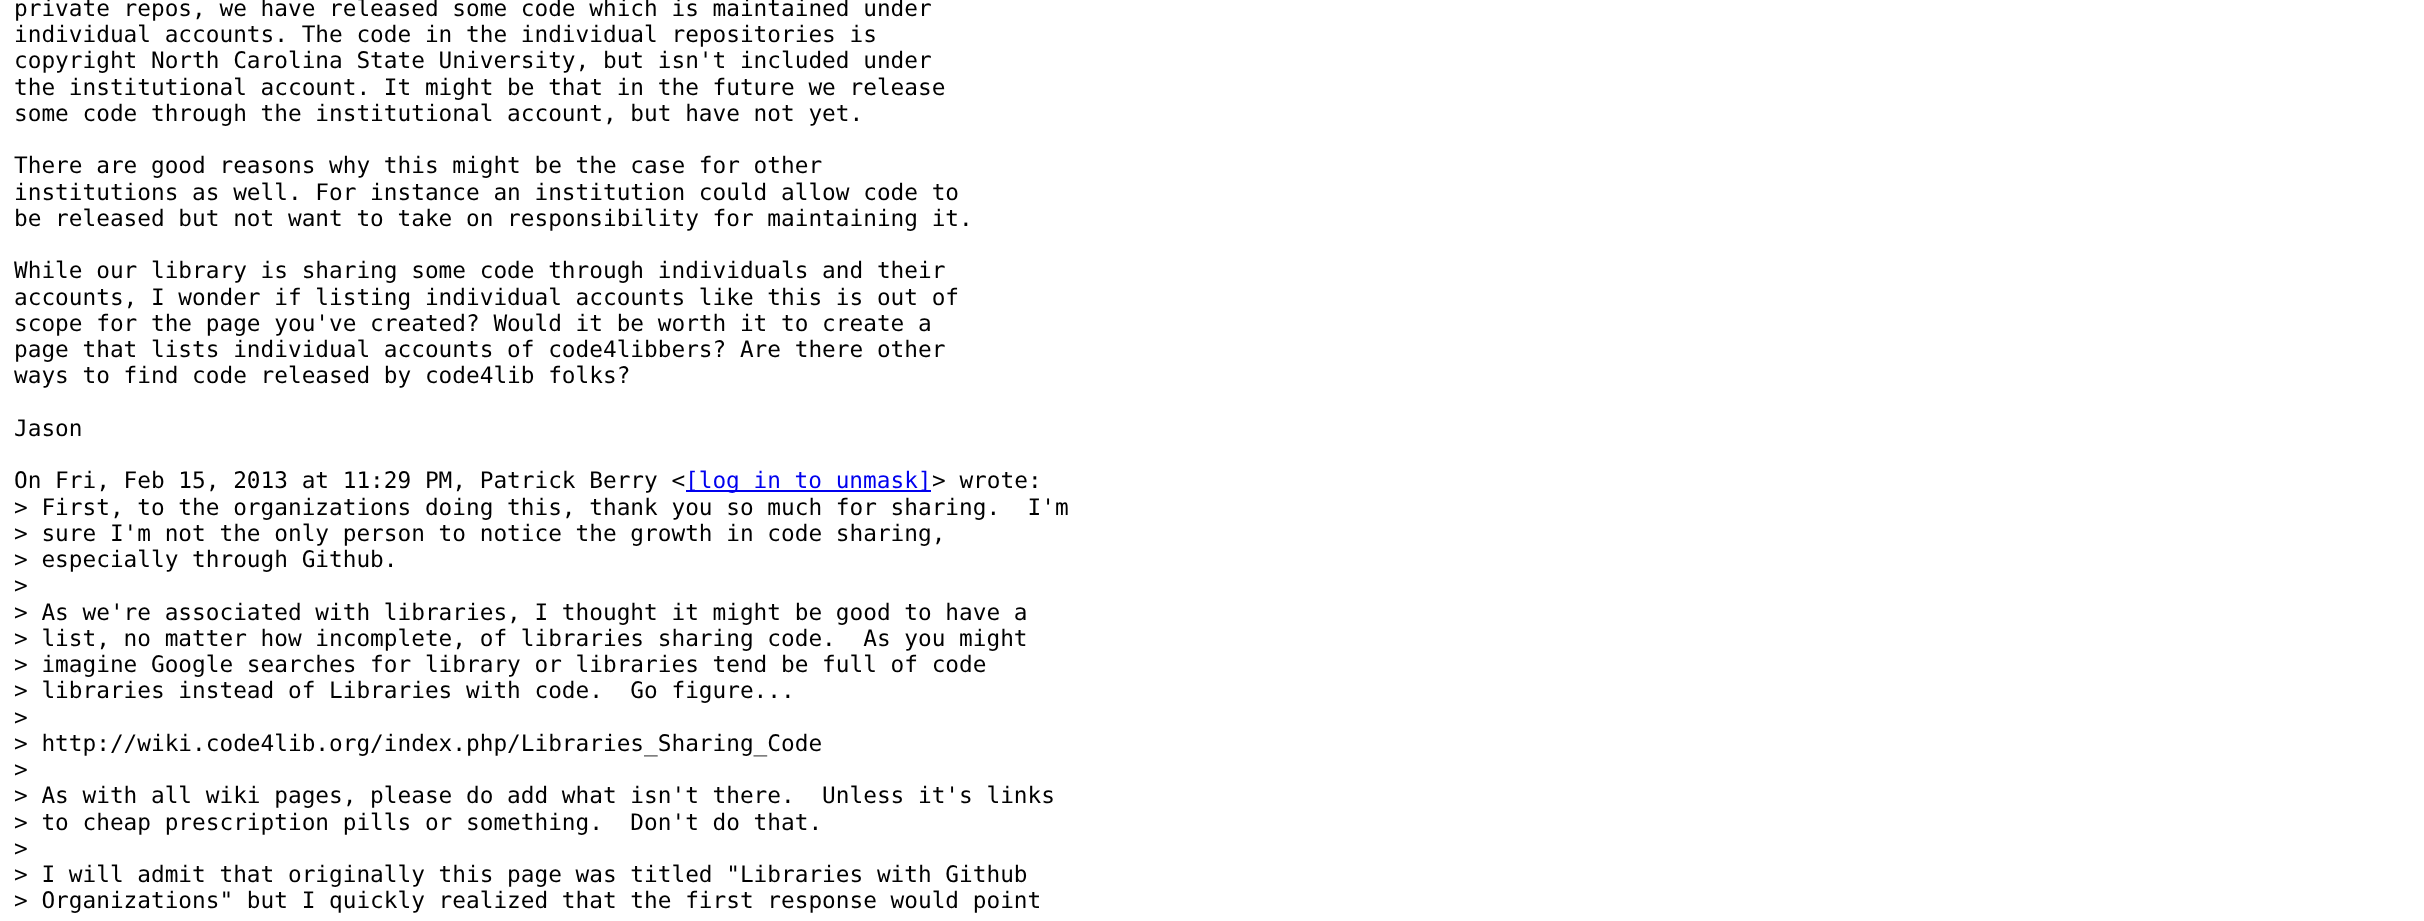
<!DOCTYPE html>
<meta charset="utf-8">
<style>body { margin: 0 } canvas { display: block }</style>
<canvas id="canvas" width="2424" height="921"></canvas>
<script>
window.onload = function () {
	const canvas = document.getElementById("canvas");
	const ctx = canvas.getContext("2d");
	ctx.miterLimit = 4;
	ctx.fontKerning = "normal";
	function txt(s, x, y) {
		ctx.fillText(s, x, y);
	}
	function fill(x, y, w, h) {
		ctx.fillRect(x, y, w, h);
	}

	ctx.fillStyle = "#FFFFFF";
	fill(0, 0, 2424, 921);
	ctx.fillStyle = "#0000EE";
	fill(686, 490, 245, 2);
	ctx.font = "22.75px DejaVu Sans Mono";
	ctx.fillStyle = "#000000";
	txt("private repos, we have released some code which is maintained under", 14, 16);
	txt("individual accounts. The code in the individual repositories is", 14, 42);
	txt("copyright North Carolina State University, but isn't included under", 14, 68);
	txt("the institutional account. It might be that in the future we release", 14, 95);
	txt("some code through the institutional account, but have not yet.", 14, 121);
	txt("There are good reasons why this might be the case for other", 14, 173);
	txt("institutions as well. For instance an institution could allow code to", 14, 200);
	txt("be released but not want to take on responsibility for maintaining it.", 14, 226);
	txt("While our library is sharing some code through individuals and their", 14, 278);
	txt("accounts, I wonder if listing individual accounts like this is out of", 14, 305);
	txt("scope for the page you've created? Would it be worth it to create a", 14, 331);
	txt("page that lists individual accounts of code4libbers? Are there other", 14, 357);
	txt("ways to find code released by code4lib folks?", 14, 383);
	txt("Jason", 14, 436);
	txt("On Fri, Feb 15, 2013 at 11:29 PM, Patrick Berry <", 14, 488);
	ctx.fillStyle = "#0000EE";
	txt("[log in to unmask]", 685, 488);
	ctx.fillStyle = "#000000";
	txt("> wrote:", 932, 488);
	txt("> First, to the organizations doing this, thank you so much for sharing.  I'm", 14, 515);
	txt("> sure I'm not the only person to notice the growth in code sharing,", 14, 541);
	txt("> especially through Github.", 14, 567);
	txt(">", 14, 593);
	txt("> As we're associated with libraries, I thought it might be good to have a", 14, 620);
	txt("> list, no matter how incomplete, of libraries sharing code.  As you might", 14, 646);
	txt("> imagine Google searches for library or libraries tend be full of code", 14, 672);
	txt("> libraries instead of Libraries with code.  Go figure...", 14, 698);
	txt(">", 14, 725);
	txt("> http://wiki.code4lib.org/index.php/Libraries_Sharing_Code", 14, 751);
	txt(">", 14, 777);
	txt("> As with all wiki pages, please do add what isn't there.  Unless it's links", 14, 803);
	txt("> to cheap prescription pills or something.  Don't do that.", 14, 830);
	txt(">", 14, 856);
	txt("> I will admit that originally this page was titled \"Libraries with Github", 14, 882);
	txt("> Organizations\" but I quickly realized that the first response would point", 14, 908);
};
</script>
